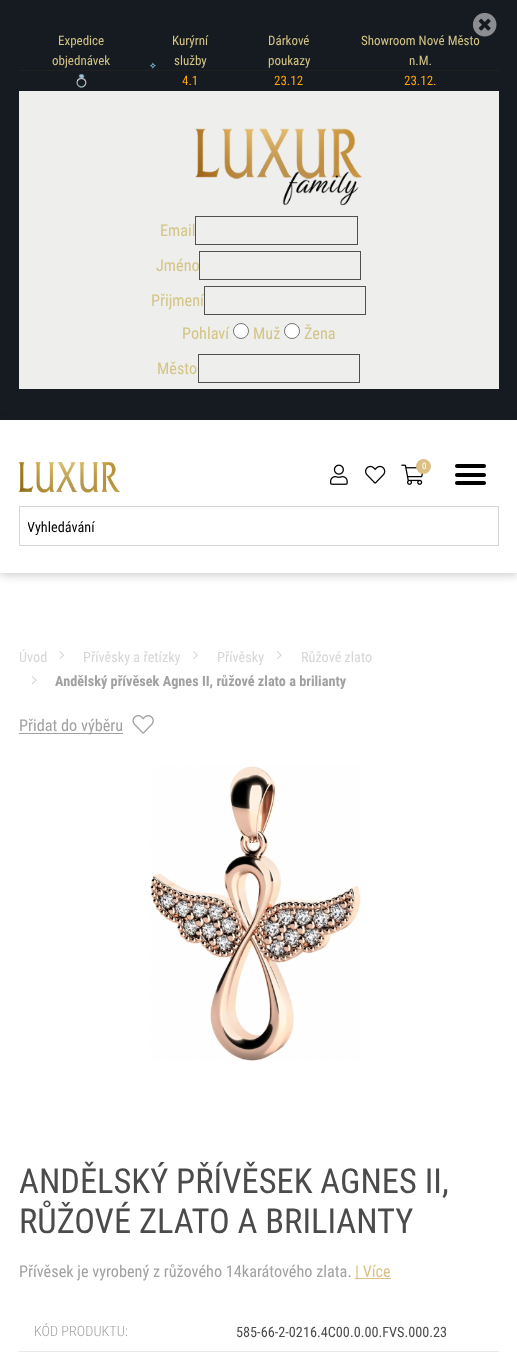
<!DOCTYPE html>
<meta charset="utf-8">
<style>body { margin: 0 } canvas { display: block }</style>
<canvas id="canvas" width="517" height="1357"></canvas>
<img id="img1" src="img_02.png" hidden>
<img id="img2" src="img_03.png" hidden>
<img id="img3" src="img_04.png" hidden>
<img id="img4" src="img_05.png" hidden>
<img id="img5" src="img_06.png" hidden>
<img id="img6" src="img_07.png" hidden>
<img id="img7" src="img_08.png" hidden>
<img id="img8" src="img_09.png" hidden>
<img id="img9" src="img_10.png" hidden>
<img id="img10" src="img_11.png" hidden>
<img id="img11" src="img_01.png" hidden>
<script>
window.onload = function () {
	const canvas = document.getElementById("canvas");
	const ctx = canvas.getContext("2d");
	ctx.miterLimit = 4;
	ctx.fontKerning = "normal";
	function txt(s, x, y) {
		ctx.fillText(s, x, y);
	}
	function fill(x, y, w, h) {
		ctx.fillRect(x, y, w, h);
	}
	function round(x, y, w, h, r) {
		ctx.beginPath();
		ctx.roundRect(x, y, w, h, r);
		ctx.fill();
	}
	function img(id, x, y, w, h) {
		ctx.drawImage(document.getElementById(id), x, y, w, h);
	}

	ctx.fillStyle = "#FFFFFF";
	fill(0, 0, 517, 1357);
	ctx.fillStyle = "#161B22";
	fill(0, 0, 517, 420);
	ctx.fillStyle = "#202020";
	fill(19, 70, 481, 1);
	ctx.fillStyle = "#EEEEEC";
	fill(19, 91, 480, 298);
	img("img1", 195, 128, 168, 78);
	ctx.strokeStyle = "#505050";
	ctx.strokeRect(195.5, 216.5, 162, 28);
	ctx.strokeRect(199.5, 251.5, 161, 28);
	ctx.fillStyle = "#FFFFFF";
	ctx.beginPath();
	ctx.arc(241, 331, 7.5, 0, Math.PI * 2);
	ctx.fill();
	ctx.strokeStyle = "#767676";
	ctx.stroke();
	ctx.beginPath();
	ctx.arc(292, 331, 7.5, 0, Math.PI * 2);
	ctx.fill();
	ctx.stroke();
	ctx.strokeStyle = "#505050";
	ctx.strokeRect(198.5, 354.5, 161, 28);
	ctx.save();
	ctx.beginPath();
	ctx.moveTo(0, 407);
	ctx.lineTo(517, 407);
	ctx.lineTo(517, 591);
	ctx.lineTo(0, 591);
	ctx.closePath();
	ctx.moveTo(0, 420);
	ctx.lineTo(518, 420);
	ctx.lineTo(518, 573);
	ctx.lineTo(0, 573);
	ctx.closePath();
	ctx.clip("evenodd");
	ctx.fillStyle = "rgba(51, 51, 51, 0.25)";
	ctx.filter = "blur(5px)";
	ctx.beginPath();
	ctx.rect(0, 423, 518, 152);
	ctx.fill();
	ctx.filter = "none";
	ctx.restore();
	img("img2", 18, 462, 102, 31);
	img("img3", 330, 464, 18, 21);
	img("img4", 365, 465, 21, 19);
	img("img5", 401, 464, 22, 21);
	ctx.fillStyle = "#DBC186";
	ctx.beginPath();
	ctx.arc(423.5, 466.5, 7.5, 0, Math.PI * 2);
	ctx.fill();
	ctx.fillStyle = "#000000";
	round(455, 464, 31, 4, 2);
	round(455, 473, 31, 4, 2);
	round(455, 481, 31, 4, 2);
	ctx.strokeStyle = "#D6D6D6";
	ctx.strokeRect(19.5, 506.5, 479, 39);
	img("img6", 59, 651, 5, 8);
	img("img7", 193, 651, 5, 8);
	img("img8", 277, 651, 5, 8);
	img("img8", 32, 676, 5, 8);
	ctx.fillStyle = "#A1A1A1";
	fill(19, 733, 104, 1);
	img("img9", 132, 715, 22, 19);
	img("img10", 150, 766, 211, 295);
	ctx.fillStyle = "#DBC186";
	fill(355, 1278, 36, 1);
	ctx.fillStyle = "#EAEAEA";
	fill(19, 1351, 480, 1);
	ctx.font = "13px Roboto Condensed";
	ctx.fillStyle = "#D4C485";
	txt("Expedice", 58, 45);
	txt("objednávek", 52, 65);
	txt("Kurýrní", 172, 45);
	txt("služby", 174, 65);
	txt("Dárkové", 268, 45);
	txt("poukazy", 268, 65);
	txt("Showroom Nové Město", 361, 45);
	img("img11", 472, 12, 25, 25);
	txt("n.M.", 409, 65);
	ctx.font = "bold 9px DejaVu Sans";
	ctx.fillStyle = "#87CEFA";
	txt("✧", 149, 69);
	ctx.font = "bold 12px Noto Color Emoji";
	ctx.fillStyle = "#D4C485";
	txt("💍", 74, 85);
	ctx.font = "13px Roboto Condensed";
	ctx.fillStyle = "#FFA500";
	txt("4.1", 182, 85);
	txt("23.12", 274, 85);
	txt("23.12.", 404, 85);
	ctx.font = "16.25px Roboto Condensed";
	ctx.fillStyle = "#D4C485";
	txt("Email", 160, 236);
	txt("Jméno", 156, 271);
	txt("Přijmení", 151, 306);
	ctx.strokeStyle = "#505050";
	ctx.strokeRect(204.5, 286.5, 161, 28);
	txt("Pohlaví", 182, 339);
	txt("Muž", 253, 339);
	txt("Žena", 304, 339);
	txt("Město", 157, 374);
	ctx.font = "9px Roboto Condensed";
	ctx.fillStyle = "#FFFFFF";
	txt("0", 422, 469);
	ctx.save();
	ctx.beginPath();
	ctx.rect(28, 518, 462, 18);
	ctx.clip();
	ctx.font = "14.25px Roboto Condensed";
	ctx.fillStyle = "#000000";
	txt("Vyhledávání", 27, 532);
	ctx.restore();
	ctx.font = "14.25px Roboto Condensed";
	ctx.fillStyle = "#D6D6D6";
	txt("Úvod", 19, 662);
	txt("Přívěsky a řetízky", 83, 662);
	txt("Přívěsky", 217, 662);
	txt("Růžové zlato", 301, 662);
	ctx.font = "bold 14.25px Roboto Condensed";
	ctx.fillStyle = "#A1A1A1";
	txt("Andělský přívěsek Agnes II, růžové zlato a brilianty", 55, 686);
	ctx.font = "16.25px Roboto Condensed";
	txt("Přidat do výběru", 19, 731);
	ctx.font = "34.5px Roboto Condensed";
	ctx.fillStyle = "#4B4B4B";
	txt("ANDĚLSKÝ PŘÍVĚSEK AGNES II,", 19, 1193);
	txt("RŮŽOVÉ ZLATO A BRILIANTY", 19, 1233);
	ctx.font = "16.25px Roboto Condensed";
	ctx.fillStyle = "#A1A1A1";
	txt("Přívěsek je vyrobený z růžového 14karátového zlata.", 19, 1277);
	ctx.fillStyle = "#DBC186";
	txt("| Více", 355, 1277);
	ctx.font = "300 14.25px Roboto Condensed";
	ctx.fillStyle = "#A1A1A1";
	txt("KÓD PRODUKTU:", 34, 1336);
	ctx.font = "14.25px Roboto Condensed";
	ctx.fillStyle = "#4B4B4B";
	txt("585-66-2-0216.4C00.0.00.FVS.000.23", 236, 1337);
};
</script>
